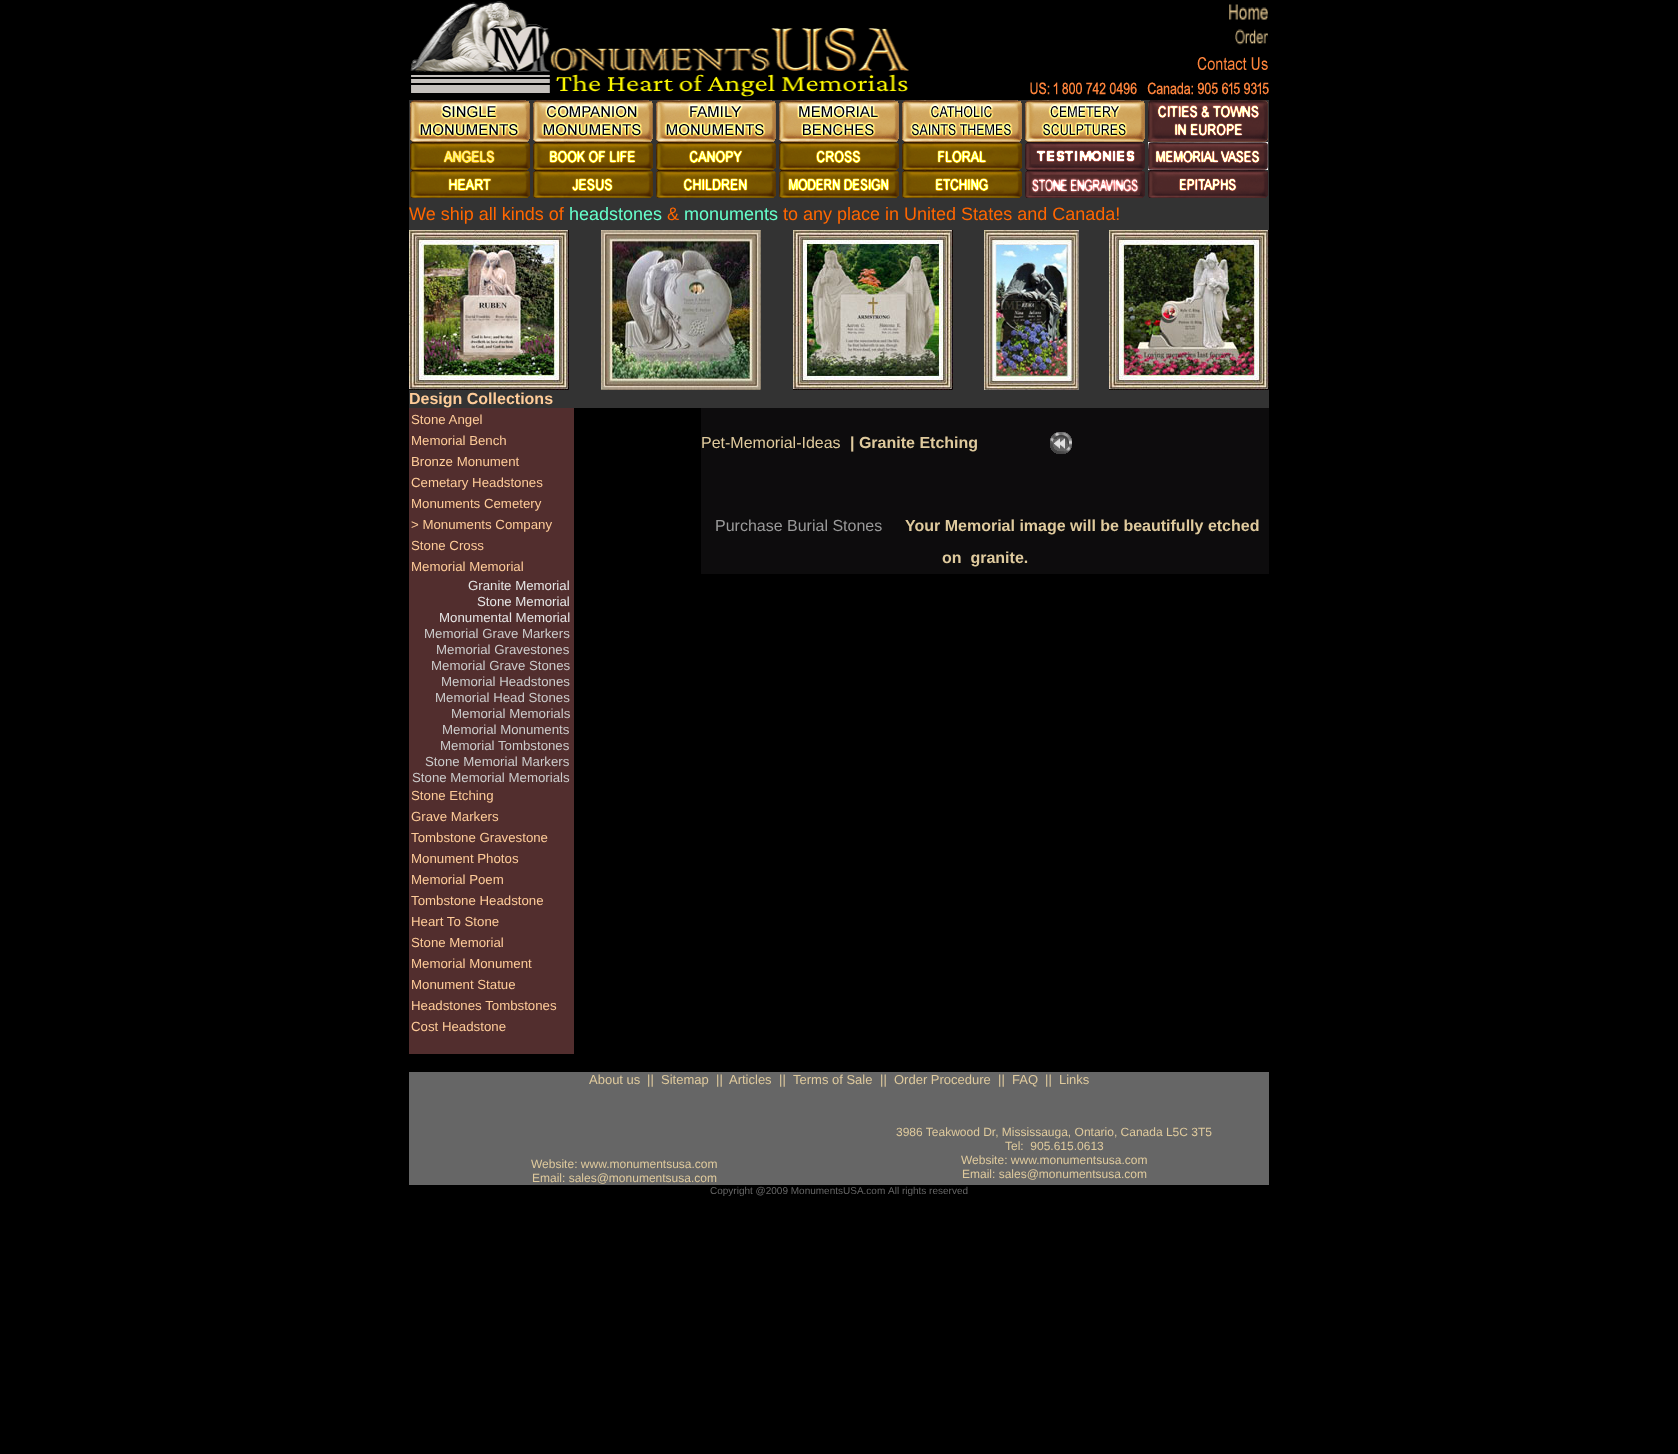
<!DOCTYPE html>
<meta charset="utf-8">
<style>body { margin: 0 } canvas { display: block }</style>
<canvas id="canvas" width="1678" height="1454"></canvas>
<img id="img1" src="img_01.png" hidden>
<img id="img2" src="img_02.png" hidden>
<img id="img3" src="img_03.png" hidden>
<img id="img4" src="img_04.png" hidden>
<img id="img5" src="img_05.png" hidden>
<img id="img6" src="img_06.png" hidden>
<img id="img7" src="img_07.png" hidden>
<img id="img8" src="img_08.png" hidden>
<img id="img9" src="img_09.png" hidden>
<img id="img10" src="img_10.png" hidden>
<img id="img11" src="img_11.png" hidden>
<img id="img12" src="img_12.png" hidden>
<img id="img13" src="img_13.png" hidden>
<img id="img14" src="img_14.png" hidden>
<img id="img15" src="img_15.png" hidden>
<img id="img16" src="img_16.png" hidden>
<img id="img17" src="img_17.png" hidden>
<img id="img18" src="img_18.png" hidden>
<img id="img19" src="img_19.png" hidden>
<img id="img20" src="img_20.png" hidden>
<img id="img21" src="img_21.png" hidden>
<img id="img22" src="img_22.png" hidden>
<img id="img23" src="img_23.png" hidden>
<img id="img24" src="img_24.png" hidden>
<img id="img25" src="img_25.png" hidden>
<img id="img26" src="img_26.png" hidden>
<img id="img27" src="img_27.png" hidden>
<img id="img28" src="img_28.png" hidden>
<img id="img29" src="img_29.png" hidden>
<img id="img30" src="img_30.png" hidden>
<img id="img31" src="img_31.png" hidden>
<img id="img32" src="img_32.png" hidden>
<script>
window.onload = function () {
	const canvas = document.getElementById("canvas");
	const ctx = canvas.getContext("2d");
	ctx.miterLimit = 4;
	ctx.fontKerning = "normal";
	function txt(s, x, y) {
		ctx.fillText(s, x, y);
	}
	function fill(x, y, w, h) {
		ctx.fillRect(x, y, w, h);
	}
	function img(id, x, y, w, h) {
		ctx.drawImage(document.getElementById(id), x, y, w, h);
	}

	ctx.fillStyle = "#000000";
	fill(0, 0, 1678, 1454);
	img("img1", 410, 1, 499, 96);
	img("img2", 1229, 4, 39, 16);
	img("img3", 1235, 29, 33, 16);
	img("img4", 1197, 57, 71, 13);
	img("img5", 1030, 82, 239, 13);
	ctx.fillStyle = "#333333";
	fill(409, 100, 860, 42);
	img("img6", 410, 100, 120, 42);
	img("img7", 533, 100, 120, 42);
	img("img8", 656, 100, 120, 42);
	img("img9", 779, 100, 120, 42);
	img("img10", 902, 100, 120, 42);
	img("img11", 1025, 100, 120, 42);
	img("img12", 1148, 100, 120, 42);
	fill(409, 142, 860, 28);
	img("img13", 410, 142, 120, 28);
	img("img14", 533, 142, 120, 28);
	img("img15", 656, 142, 120, 28);
	img("img16", 779, 142, 120, 28);
	img("img17", 902, 142, 120, 28);
	img("img18", 1025, 142, 120, 28);
	img("img19", 1148, 142, 120, 28);
	fill(409, 170, 860, 60);
	img("img20", 410, 170, 120, 28);
	img("img21", 533, 170, 120, 28);
	img("img22", 656, 170, 120, 28);
	img("img23", 779, 170, 120, 28);
	img("img24", 902, 170, 120, 28);
	img("img25", 1025, 170, 120, 28);
	img("img26", 1148, 170, 120, 28);
	img("img27", 409, 230, 160, 160);
	fill(569, 230, 540, 160);
	img("img28", 601, 230, 160, 160);
	img("img29", 793, 230, 160, 160);
	img("img30", 984, 230, 95, 160);
	img("img31", 1109, 230, 160, 160);
	fill(409, 390, 860, 18);
	ctx.fillStyle = "#522E2E";
	fill(409, 408, 165, 646);
	ctx.fillStyle = "#0D0C0D";
	fill(701, 408, 568, 166);
	img("img32", 1050, 432, 22, 22);
	ctx.fillStyle = "#666666";
	fill(409, 1072, 860, 113);
	ctx.font = "18px Liberation Sans";
	ctx.fillStyle = "#FF6600";
	txt("We ship all kinds of", 409, 220);
	ctx.fillStyle = "#66FFCC";
	txt("headstones", 569, 220);
	ctx.fillStyle = "#FF6600";
	txt("&", 667, 220);
	ctx.fillStyle = "#66FFCC";
	txt("monuments", 684, 220);
	ctx.fillStyle = "#FF6600";
	txt("to any place in United States and Canada!", 783, 220);
	ctx.font = "bold 16px Liberation Sans";
	ctx.fillStyle = "#FFCC99";
	txt("Design Collections", 409, 404);
	ctx.font = "13.25px Liberation Sans";
	txt("Stone Angel", 411, 424);
	txt("Memorial Bench", 411, 445);
	txt("Bronze Monument", 411, 466);
	txt("Cemetary Headstones", 411, 487);
	txt("Monuments Cemetery", 411, 508);
	txt("> Monuments Company", 411, 529);
	txt("Stone Cross", 411, 550);
	txt("Memorial Memorial", 411, 571);
	ctx.fillStyle = "#E6E6E6";
	txt("Granite Memorial", 468, 590);
	txt("Stone Memorial", 477, 606);
	txt("Monumental Memorial", 439, 622);
	ctx.fillStyle = "#CCCCCC";
	txt("Memorial Grave Markers", 424, 638);
	txt("Memorial Gravestones", 436, 654);
	txt("Memorial Grave Stones", 431, 670);
	txt("Memorial Headstones", 441, 686);
	txt("Memorial Head Stones", 435, 702);
	txt("Memorial Memorials", 451, 718);
	txt("Memorial Monuments", 442, 734);
	txt("Memorial Tombstones", 440, 750);
	txt("Stone Memorial Markers", 425, 766);
	txt("Stone Memorial Memorials", 412, 782);
	ctx.fillStyle = "#FFCC99";
	txt("Stone Etching", 411, 800);
	txt("Grave Markers", 411, 821);
	txt("Tombstone Gravestone", 411, 842);
	txt("Monument Photos", 411, 863);
	txt("Memorial Poem", 411, 884);
	txt("Tombstone Headstone", 411, 905);
	txt("Heart To Stone", 411, 926);
	txt("Stone Memorial", 411, 947);
	txt("Memorial Monument", 411, 968);
	txt("Monument Statue", 411, 989);
	txt("Headstones Tombstones", 411, 1010);
	txt("Cost Headstone", 411, 1031);
	ctx.font = "16px Liberation Sans";
	ctx.fillStyle = "#DFCA9D";
	txt("Pet-Memorial-Ideas", 701, 448);
	ctx.font = "bold 16px Liberation Sans";
	txt("| Granite Etching", 850, 448);
	ctx.font = "16px Liberation Sans";
	ctx.fillStyle = "#9A9A9A";
	txt("Purchase Burial Stones", 715, 531);
	ctx.font = "bold 16px Liberation Sans";
	ctx.fillStyle = "#DFCA9D";
	txt("Your Memorial image will be beautifully etched", 905, 531);
	txt("on  granite.", 942, 563);
	ctx.font = "13px Liberation Sans";
	txt("About us", 589, 1084);
	txt("||", 647, 1084);
	txt("Sitemap", 661, 1084);
	txt("||", 716, 1084);
	txt("Articles", 729, 1084);
	txt("||", 779, 1084);
	txt("Terms of Sale", 793, 1084);
	txt("||", 880, 1084);
	txt("Order Procedure", 894, 1084);
	txt("||", 998, 1084);
	txt("FAQ", 1012, 1084);
	txt("||", 1045, 1084);
	txt("Links", 1059, 1084);
	ctx.font = "12px Liberation Sans";
	txt("Website: www.monumentsusa.com", 531, 1168);
	txt("Email: sales@monumentsusa.com", 532, 1182);
	txt("3986 Teakwood Dr, Mississauga, Ontario, Canada L5C 3T5", 896, 1136);
	txt("Tel:  905.615.0613", 1005, 1150);
	txt("Website: www.monumentsusa.com", 961, 1164);
	txt("Email: sales@monumentsusa.com", 962, 1178);
	ctx.font = "10px Liberation Sans";
	ctx.fillStyle = "#666666";
	txt("Copyright @2009 MonumentsUSA.com", 710, 1194);
	txt("All rights reserved", 888, 1194);
};
</script>
